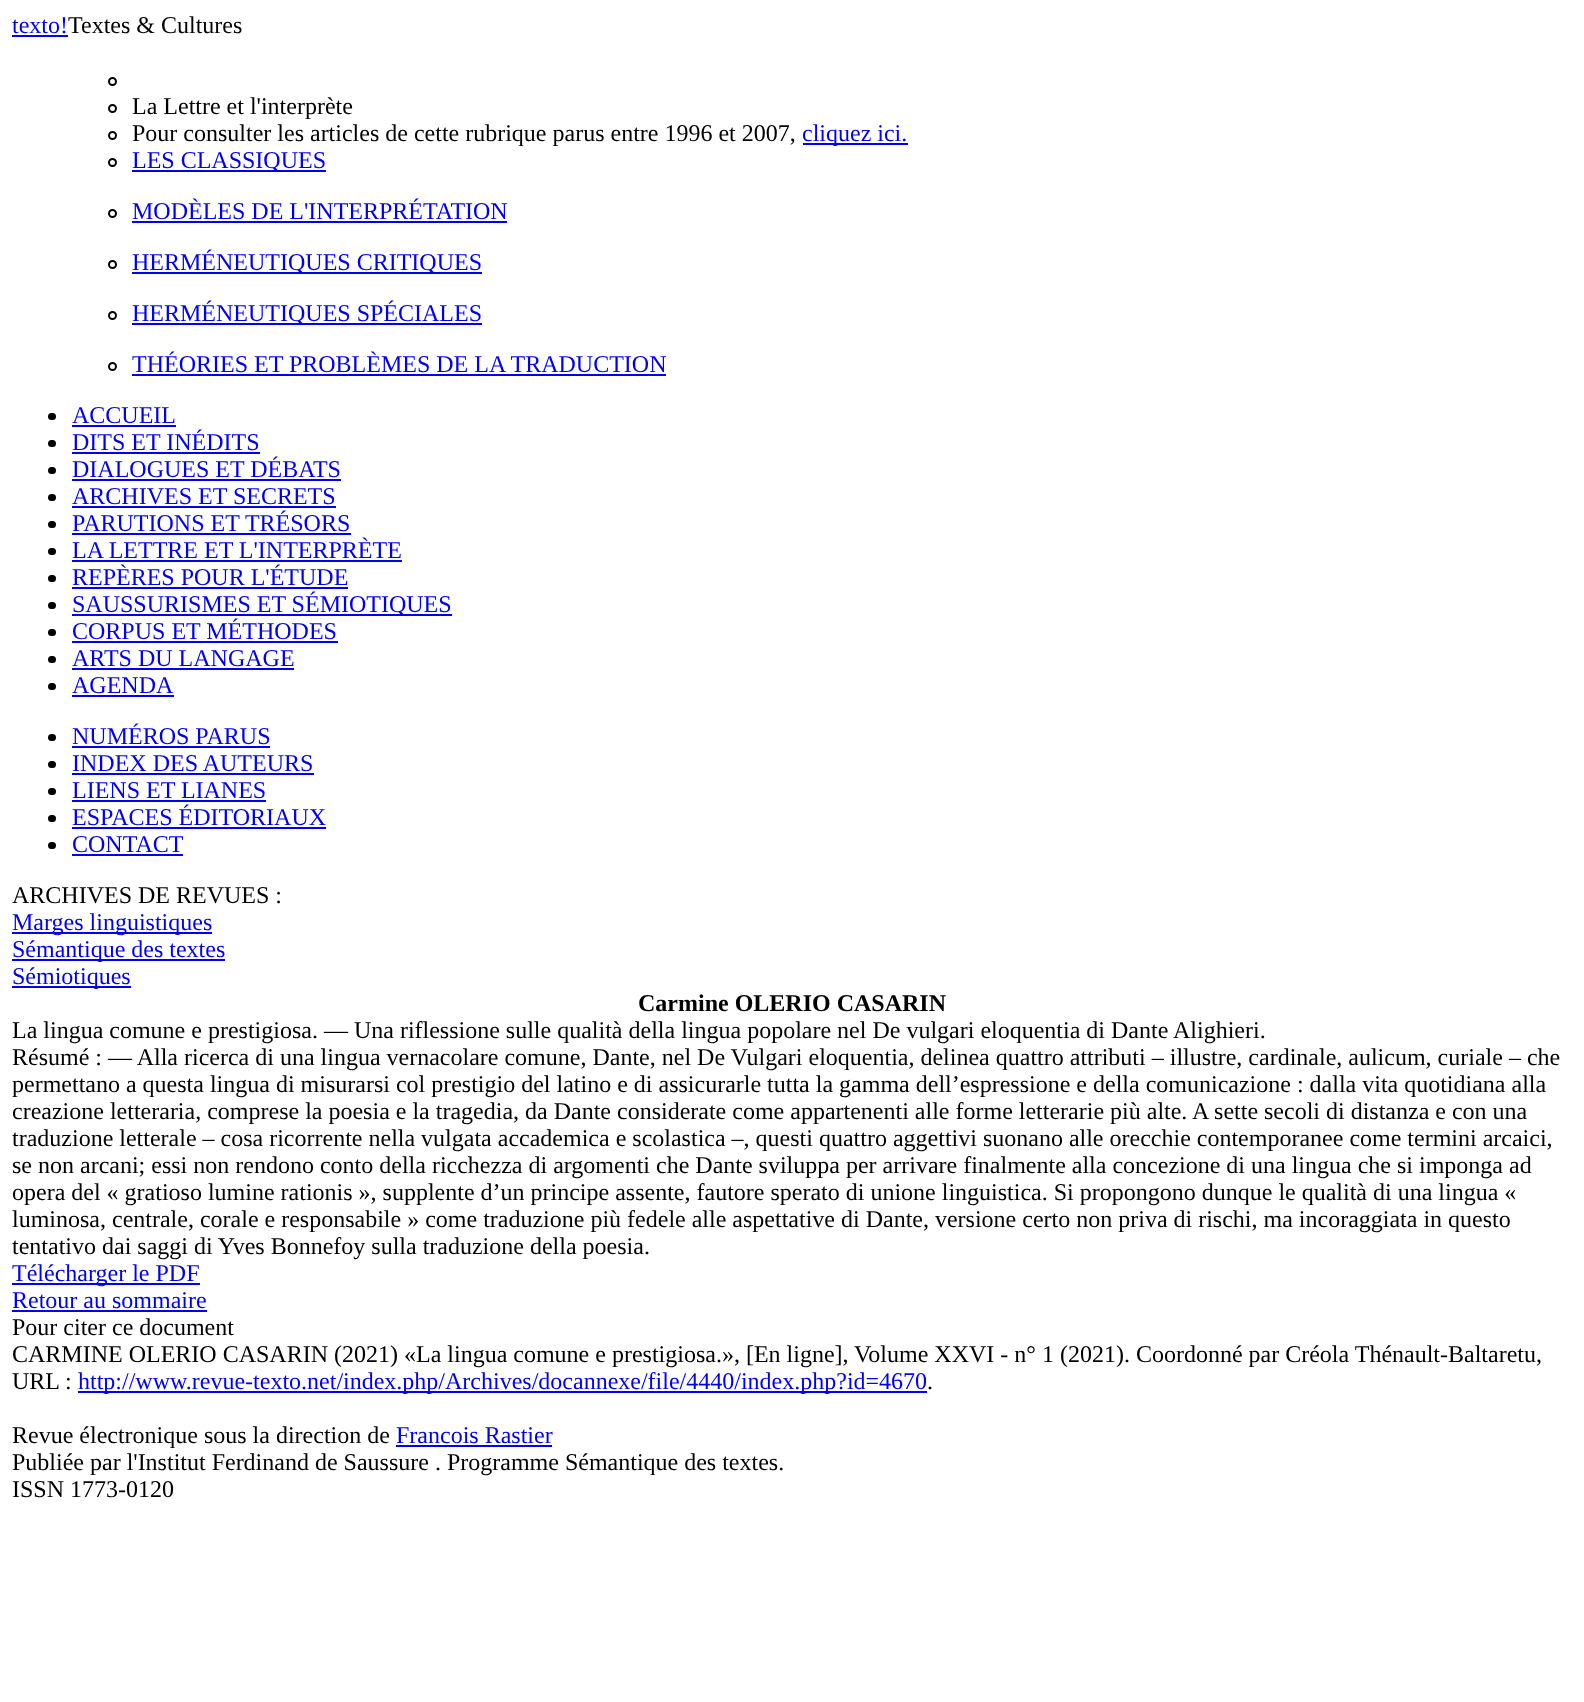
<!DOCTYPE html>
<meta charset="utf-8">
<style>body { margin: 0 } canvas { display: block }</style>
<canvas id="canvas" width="1584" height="1702"></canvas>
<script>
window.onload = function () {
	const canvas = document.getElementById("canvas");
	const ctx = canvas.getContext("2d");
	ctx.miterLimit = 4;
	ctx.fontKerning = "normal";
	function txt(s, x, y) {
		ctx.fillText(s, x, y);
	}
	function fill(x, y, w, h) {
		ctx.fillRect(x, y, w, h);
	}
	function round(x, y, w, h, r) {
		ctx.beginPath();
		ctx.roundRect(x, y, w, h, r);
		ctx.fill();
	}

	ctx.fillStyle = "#FFFFFF";
	fill(0, 0, 1584, 1702);
	ctx.fillStyle = "#0000EE";
	fill(12, 35, 56, 2);
	ctx.beginPath();
	ctx.arc(112.5, 81.5, 3.5, 0, Math.PI * 2);
	ctx.strokeStyle = "#000000";
	ctx.lineWidth = 2;
	ctx.stroke();
	ctx.beginPath();
	ctx.arc(112.5, 108.5, 3.5, 0, Math.PI * 2);
	ctx.stroke();
	ctx.beginPath();
	ctx.arc(112.5, 135.5, 3.5, 0, Math.PI * 2);
	ctx.stroke();
	fill(803, 143, 105, 2);
	ctx.beginPath();
	ctx.arc(112.5, 162.5, 3.5, 0, Math.PI * 2);
	ctx.stroke();
	fill(132, 170, 194, 2);
	ctx.beginPath();
	ctx.arc(112.5, 213.5, 3.5, 0, Math.PI * 2);
	ctx.stroke();
	fill(132, 221, 375, 2);
	ctx.beginPath();
	ctx.arc(112.5, 264.5, 3.5, 0, Math.PI * 2);
	ctx.stroke();
	fill(132, 272, 350, 2);
	ctx.beginPath();
	ctx.arc(112.5, 315.5, 3.5, 0, Math.PI * 2);
	ctx.stroke();
	fill(132, 323, 350, 2);
	ctx.beginPath();
	ctx.arc(112.5, 366.5, 3.5, 0, Math.PI * 2);
	ctx.stroke();
	fill(132, 374, 534, 2);
	ctx.fillStyle = "#000000";
	round(48, 413, 8, 7, 3.5);
	ctx.fillStyle = "#0000EE";
	fill(72, 425, 104, 2);
	ctx.fillStyle = "#000000";
	round(48, 440, 8, 7, 3.5);
	ctx.fillStyle = "#0000EE";
	fill(72, 452, 188, 2);
	ctx.fillStyle = "#000000";
	round(48, 467, 8, 7, 3.5);
	ctx.fillStyle = "#0000EE";
	fill(72, 479, 269, 2);
	ctx.fillStyle = "#000000";
	round(48, 494, 8, 7, 3.5);
	ctx.fillStyle = "#0000EE";
	fill(72, 506, 264, 2);
	ctx.fillStyle = "#000000";
	round(48, 521, 8, 7, 3.5);
	ctx.fillStyle = "#0000EE";
	fill(72, 533, 279, 2);
	ctx.fillStyle = "#000000";
	round(48, 548, 8, 7, 3.5);
	ctx.fillStyle = "#0000EE";
	fill(72, 560, 330, 2);
	ctx.fillStyle = "#000000";
	round(48, 575, 8, 7, 3.5);
	ctx.fillStyle = "#0000EE";
	fill(72, 587, 276, 2);
	ctx.fillStyle = "#000000";
	round(48, 602, 8, 7, 3.5);
	ctx.fillStyle = "#0000EE";
	fill(72, 614, 380, 2);
	ctx.fillStyle = "#000000";
	round(48, 629, 8, 7, 3.5);
	ctx.fillStyle = "#0000EE";
	fill(72, 641, 266, 2);
	ctx.fillStyle = "#000000";
	round(48, 656, 8, 7, 3.5);
	ctx.fillStyle = "#0000EE";
	fill(72, 668, 222, 2);
	ctx.fillStyle = "#000000";
	round(48, 683, 8, 7, 3.5);
	ctx.fillStyle = "#0000EE";
	fill(72, 695, 102, 2);
	ctx.fillStyle = "#000000";
	round(48, 734, 8, 7, 3.5);
	ctx.fillStyle = "#0000EE";
	fill(72, 746, 198, 2);
	ctx.fillStyle = "#000000";
	round(48, 761, 8, 7, 3.5);
	ctx.fillStyle = "#0000EE";
	fill(72, 773, 242, 2);
	ctx.fillStyle = "#000000";
	round(48, 788, 8, 7, 3.5);
	ctx.fillStyle = "#0000EE";
	fill(72, 800, 194, 2);
	ctx.fillStyle = "#000000";
	round(48, 815, 8, 7, 3.5);
	ctx.fillStyle = "#0000EE";
	fill(72, 827, 254, 2);
	ctx.fillStyle = "#000000";
	round(48, 842, 8, 7, 3.5);
	ctx.fillStyle = "#0000EE";
	fill(72, 854, 111, 2);
	fill(12, 932, 200, 2);
	fill(12, 959, 213, 2);
	fill(12, 986, 119, 2);
	fill(12, 1283, 188, 2);
	fill(12, 1310, 195, 2);
	fill(78, 1391, 849, 2);
	fill(396, 1445, 156, 2);
	ctx.font = "24px Liberation Serif";
	txt("texto!", 12, 33);
	ctx.fillStyle = "#000000";
	txt("Textes & Cultures", 68, 33);
	txt("La Lettre et l'interprète", 132, 114);
	txt("Pour consulter les articles de cette rubrique parus entre 1996 et 2007,", 132, 141);
	ctx.fillStyle = "#0000EE";
	txt("cliquez ici.", 802, 141);
	txt("LES CLASSIQUES", 132, 168);
	txt("MODÈLES DE L'INTERPRÉTATION", 132, 219);
	txt("HERMÉNEUTIQUES CRITIQUES", 132, 270);
	txt("HERMÉNEUTIQUES SPÉCIALES", 132, 321);
	txt("THÉORIES ET PROBLÈMES DE LA TRADUCTION", 132, 372);
	txt("ACCUEIL", 72, 423);
	txt("DITS ET INÉDITS", 72, 450);
	txt("DIALOGUES ET DÉBATS", 72, 477);
	txt("ARCHIVES ET SECRETS", 72, 504);
	txt("PARUTIONS ET TRÉSORS", 72, 531);
	txt("LA LETTRE ET L'INTERPRÈTE", 72, 558);
	txt("REPÈRES POUR L'ÉTUDE", 72, 585);
	txt("SAUSSURISMES ET SÉMIOTIQUES", 72, 612);
	txt("CORPUS ET MÉTHODES", 72, 639);
	txt("ARTS DU LANGAGE", 72, 666);
	txt("AGENDA", 72, 693);
	txt("NUMÉROS PARUS", 72, 744);
	txt("INDEX DES AUTEURS", 72, 771);
	txt("LIENS ET LIANES", 72, 798);
	txt("ESPACES ÉDITORIAUX", 72, 825);
	txt("CONTACT", 72, 852);
	ctx.fillStyle = "#000000";
	txt("ARCHIVES DE REVUES :", 12, 903);
	ctx.fillStyle = "#0000EE";
	txt("Marges linguistiques", 12, 930);
	txt("Sémantique des textes", 12, 957);
	txt("Sémiotiques", 12, 984);
	ctx.font = "bold 24px Liberation Serif";
	ctx.fillStyle = "#000000";
	txt("Carmine OLERIO CASARIN", 638, 1011);
	ctx.font = "24px Liberation Serif";
	txt("La lingua comune e prestigiosa. — Una riflessione sulle qualità della lingua popolare nel De vulgari eloquentia di Dante Alighieri.", 12, 1038);
	txt("Résumé : — Alla ricerca di una lingua vernacolare comune, Dante, nel De Vulgari eloquentia, delinea quattro attributi – illustre, cardinale, aulicum, curiale – che", 12, 1065);
	txt("permettano a questa lingua di misurarsi col prestigio del latino e di assicurarle tutta la gamma dell’espressione e della comunicazione : dalla vita quotidiana alla", 12, 1092);
	txt("creazione letteraria, comprese la poesia e la tragedia, da Dante considerate come appartenenti alle forme letterarie più alte. A sette secoli di distanza e con una", 12, 1119);
	txt("traduzione letterale – cosa ricorrente nella vulgata accademica e scolastica –, questi quattro aggettivi suonano alle orecchie contemporanee come termini arcaici,", 12, 1146);
	txt("se non arcani; essi non rendono conto della ricchezza di argomenti che Dante sviluppa per arrivare finalmente alla concezione di una lingua che si imponga ad", 12, 1173);
	txt("opera del « gratioso lumine rationis », supplente d’un principe assente, fautore sperato di unione linguistica. Si propongono dunque le qualità di una lingua «", 12, 1200);
	txt("luminosa, centrale, corale e responsabile » come traduzione più fedele alle aspettative di Dante, versione certo non priva di rischi, ma incoraggiata in questo", 12, 1227);
	txt("tentativo dai saggi di Yves Bonnefoy sulla traduzione della poesia.", 12, 1254);
	ctx.fillStyle = "#0000EE";
	txt("Télécharger le PDF", 12, 1281);
	txt("Retour au sommaire", 12, 1308);
	ctx.fillStyle = "#000000";
	txt("Pour citer ce document", 12, 1335);
	txt("CARMINE OLERIO CASARIN (2021) «La lingua comune e prestigiosa.», [En ligne], Volume XXVI - n° 1 (2021). Coordonné par Créola Thénault-Baltaretu,", 12, 1362);
	txt("URL :", 12, 1389);
	ctx.fillStyle = "#0000EE";
	txt("http://www.revue-texto.net/index.php/Archives/docannexe/file/4440/index.php?id=4670", 78, 1389);
	ctx.fillStyle = "#000000";
	txt(".", 927, 1389);
	txt("Revue électronique sous la direction de", 12, 1443);
	ctx.fillStyle = "#0000EE";
	txt("Francois Rastier", 396, 1443);
	ctx.fillStyle = "#000000";
	txt("Publiée par l'Institut Ferdinand de Saussure . Programme Sémantique des textes.", 12, 1470);
	txt("ISSN 1773-0120", 12, 1497);
};
</script>
